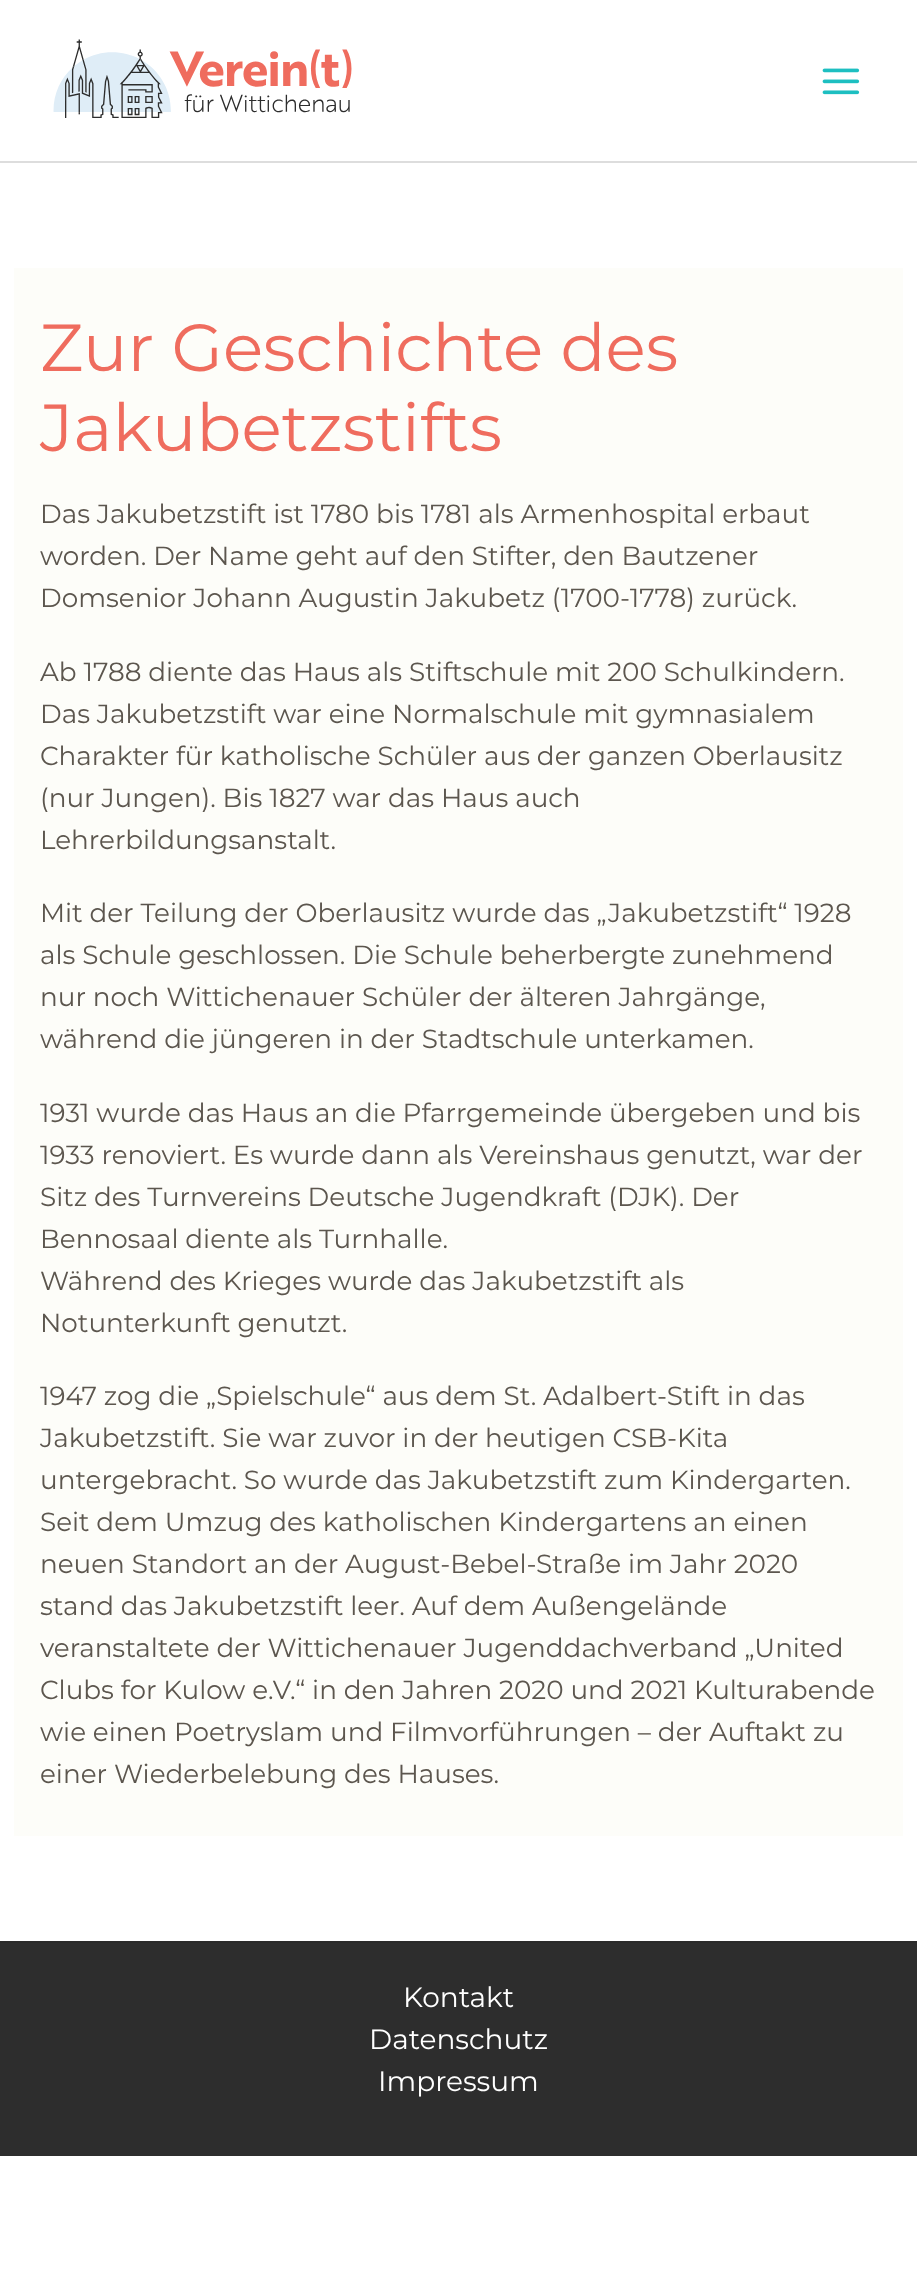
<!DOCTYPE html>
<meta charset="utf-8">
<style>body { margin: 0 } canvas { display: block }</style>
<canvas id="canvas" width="917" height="2287"></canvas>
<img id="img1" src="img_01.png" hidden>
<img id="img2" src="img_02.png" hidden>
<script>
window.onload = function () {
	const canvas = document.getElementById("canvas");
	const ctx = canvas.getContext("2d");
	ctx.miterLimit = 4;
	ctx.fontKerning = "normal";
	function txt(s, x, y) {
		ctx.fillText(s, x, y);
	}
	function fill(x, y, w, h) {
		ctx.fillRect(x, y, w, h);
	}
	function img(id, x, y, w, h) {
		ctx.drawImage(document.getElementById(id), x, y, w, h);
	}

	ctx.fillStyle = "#FFFFFF";
	fill(0, 0, 917, 2287);
	ctx.fillStyle = "#DDDDDD";
	fill(0, 161, 917, 2);
	img("img1", 53, 39, 299, 79);
	img("img2", 822, 68, 38, 27);
	ctx.fillStyle = "#FDFDF9";
	fill(14, 268, 889, 1568);
	ctx.fillStyle = "#2D2D2D";
	fill(0, 1943, 917, 213);
	ctx.fillStyle = "#2A2A2A";
	fill(0, 1941, 917, 2);
	ctx.font = "66.5px Montserrat";
	ctx.fillStyle = "#EF6C5E";
	txt("Zur Geschichte des", 40, 371);
	txt("Jakubetzstifts", 40, 451);
	ctx.font = "26.25px Montserrat";
	ctx.fillStyle = "#5C564E";
	txt("Das Jakubetzstift ist 1780 bis 1781 als Armenhospital erbaut", 40, 523);
	txt("worden. Der Name geht auf den Stifter, den Bautzener", 40, 565);
	txt("Domsenior Johann Augustin Jakubetz (1700-1778) zurück.", 40, 607);
	txt("Ab 1788 diente das Haus als Stiftschule mit 200 Schulkindern.", 40, 681);
	txt("Das Jakubetzstift war eine Normalschule mit gymnasialem", 40, 723);
	txt("Charakter für katholische Schüler aus der ganzen Oberlausitz", 40, 765);
	txt("(nur Jungen). Bis 1827 war das Haus auch", 40, 807);
	txt("Lehrerbildungsanstalt.", 40, 849);
	txt("Mit der Teilung der Oberlausitz wurde das „Jakubetzstift“ 1928", 40, 922);
	txt("als Schule geschlossen. Die Schule beherbergte zunehmend", 40, 964);
	txt("nur noch Wittichenauer Schüler der älteren Jahrgänge,", 40, 1006);
	txt("während die jüngeren in der Stadtschule unterkamen.", 40, 1048);
	txt("1931 wurde das Haus an die Pfarrgemeinde übergeben und bis", 40, 1122);
	txt("1933 renoviert. Es wurde dann als Vereinshaus genutzt, war der", 40, 1164);
	txt("Sitz des Turnvereins Deutsche Jugendkraft (DJK). Der", 40, 1206);
	txt("Bennosaal diente als Turnhalle.", 40, 1248);
	txt("Während des Krieges wurde das Jakubetzstift als", 40, 1290);
	txt("Notunterkunft genutzt.", 40, 1332);
	txt("1947 zog die „Spielschule“ aus dem St. Adalbert-Stift in das", 40, 1405);
	txt("Jakubetzstift. Sie war zuvor in der heutigen CSB-Kita", 40, 1447);
	txt("untergebracht. So wurde das Jakubetzstift zum Kindergarten.", 40, 1489);
	txt("Seit dem Umzug des katholischen Kindergartens an einen", 40, 1531);
	txt("neuen Standort an der August-Bebel-Straße im Jahr 2020", 40, 1573);
	txt("stand das Jakubetzstift leer. Auf dem Außengelände", 40, 1615);
	txt("veranstaltete der Wittichenauer Jugenddachverband „United", 40, 1657);
	txt("Clubs for Kulow e.V.“ in den Jahren 2020 und 2021 Kulturabende", 40, 1699);
	txt("wie einen Poetryslam und Filmvorführungen – der Auftakt zu", 40, 1741);
	txt("einer Wiederbelebung des Hauses.", 40, 1783);
	ctx.font = "28px Montserrat";
	ctx.fillStyle = "#FFFFFF";
	txt("Kontakt", 403, 2007);
	txt("Datenschutz", 369, 2049);
	txt("Impressum", 378, 2091);
};
</script>
